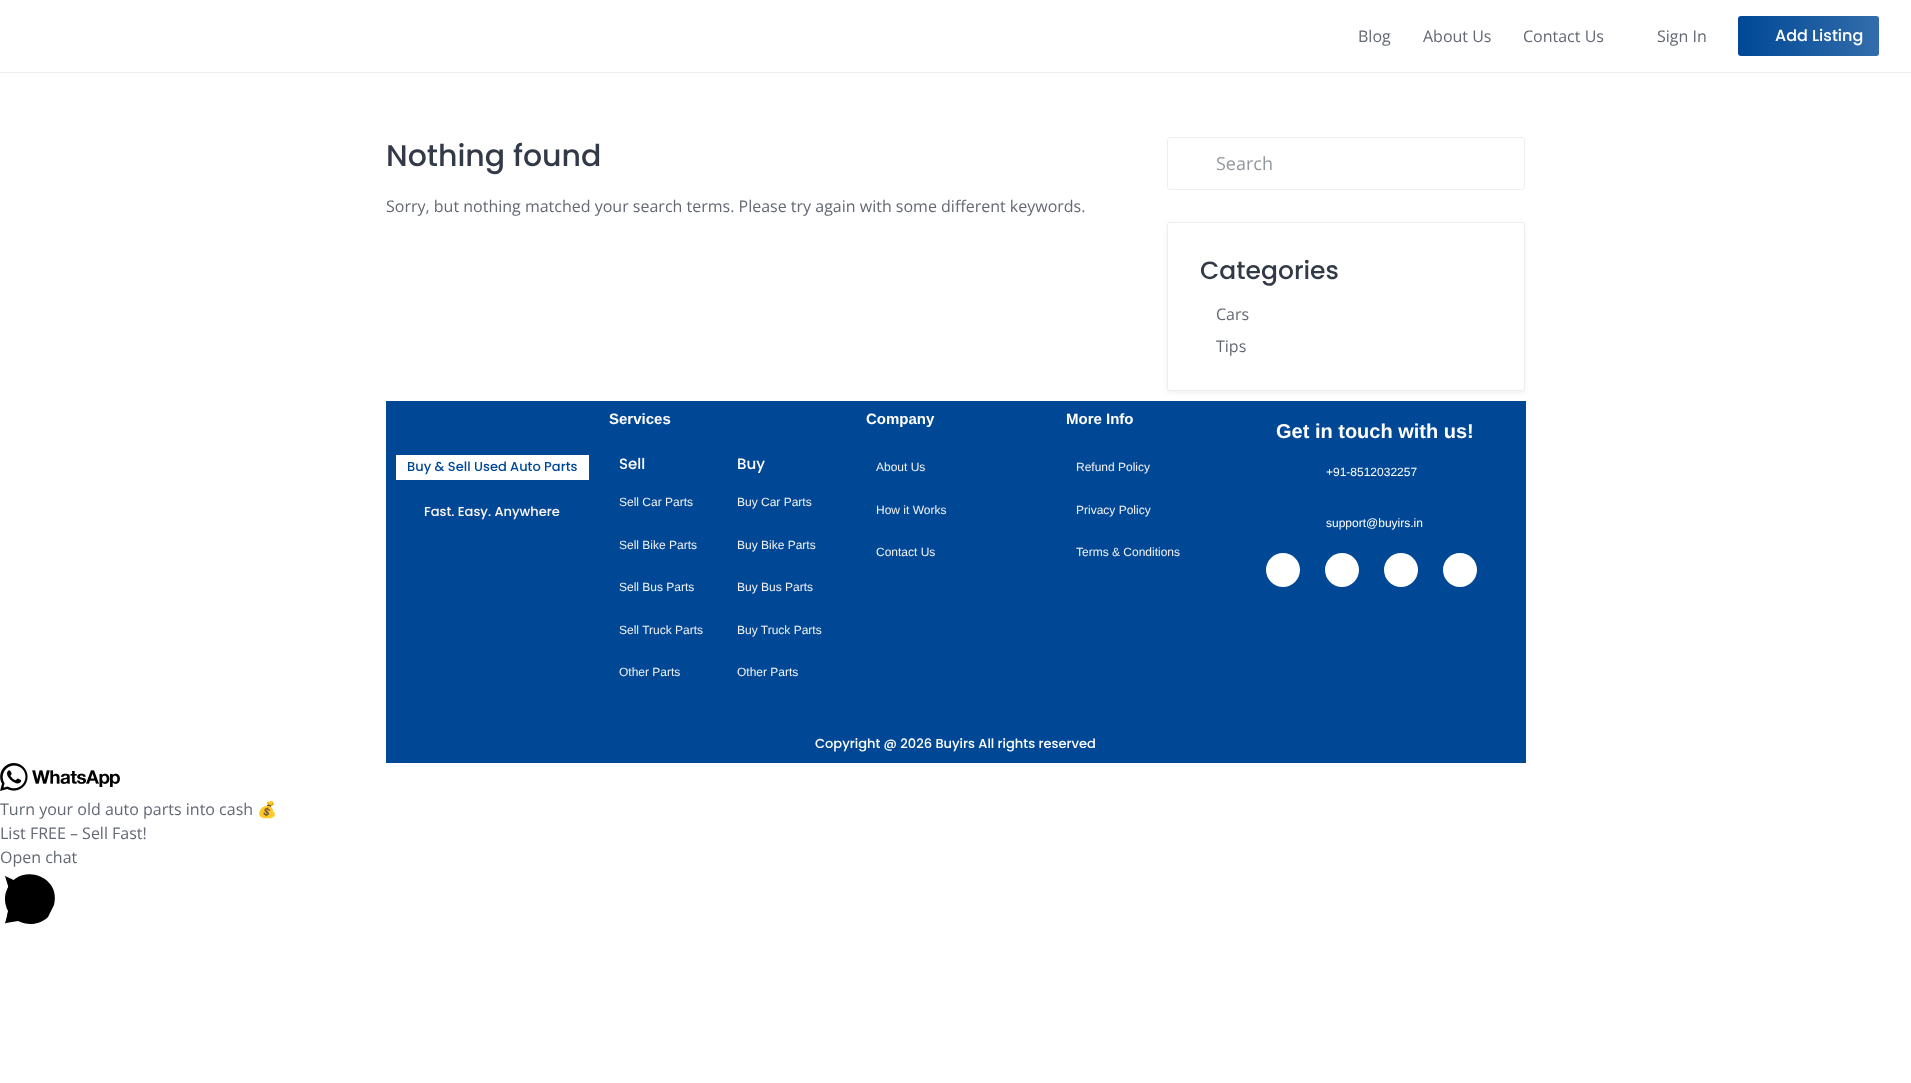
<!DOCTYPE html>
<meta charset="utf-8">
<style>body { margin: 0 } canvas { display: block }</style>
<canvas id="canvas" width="1911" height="1083"></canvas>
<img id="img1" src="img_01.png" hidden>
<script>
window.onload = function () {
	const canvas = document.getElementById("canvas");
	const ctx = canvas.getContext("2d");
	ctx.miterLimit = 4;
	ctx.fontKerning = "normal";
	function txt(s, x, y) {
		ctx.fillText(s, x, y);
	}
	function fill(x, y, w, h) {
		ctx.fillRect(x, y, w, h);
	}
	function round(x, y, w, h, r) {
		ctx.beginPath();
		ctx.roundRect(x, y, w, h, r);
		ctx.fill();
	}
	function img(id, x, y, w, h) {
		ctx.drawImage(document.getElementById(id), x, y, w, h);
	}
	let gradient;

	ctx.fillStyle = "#FFFFFF";
	fill(0, 0, 1911, 1083);
	ctx.fillStyle = "#ECEFF2";
	fill(0, 72, 1911, 1);
	ctx.fillStyle = "#004896";
	round(1738, 16, 141, 40, 3);
	gradient = ctx.createLinearGradient(1738, 36, 1879, 36);
	gradient.addColorStop(0, "rgba(255, 255, 255, 0)");
	gradient.addColorStop(1, "rgba(255, 255, 255, 0.2)");
	ctx.fillStyle = gradient;
	round(1738, 16, 141, 40, 3);
	ctx.beginPath();
	ctx.roundRect(1167.5, 137.5, 357, 52, 2.5);
	ctx.strokeStyle = "#ECEFF2";
	ctx.stroke();
	ctx.fillStyle = "rgba(7, 36, 86, 0.07)";
	ctx.filter = "blur(2px)";
	ctx.beginPath();
	ctx.roundRect(1167, 224, 358, 169, 3);
	ctx.fill();
	ctx.filter = "none";
	ctx.fillStyle = "#FFFFFF";
	ctx.beginPath();
	ctx.roundRect(1167.5, 222.5, 357, 168, 2.5);
	ctx.fill();
	ctx.stroke();
	ctx.fillStyle = "#004896";
	fill(386, 401, 1140, 362);
	ctx.fillStyle = "#FFFFFF";
	fill(396, 455, 193, 25);
	ctx.beginPath();
	ctx.arc(1283, 570, 17, 0, Math.PI * 2);
	ctx.fill();
	ctx.beginPath();
	ctx.arc(1342, 570, 17, 0, Math.PI * 2);
	ctx.fill();
	ctx.beginPath();
	ctx.arc(1401, 570, 17, 0, Math.PI * 2);
	ctx.fill();
	ctx.beginPath();
	ctx.arc(1460, 570, 17, 0, Math.PI * 2);
	ctx.fill();
	img("img1", 0, 763, 120, 28);
	ctx.fillStyle = "#000000";
	ctx.beginPath();
	ctx.moveTo(25, 899);
	ctx.lineTo(12, 899);
	ctx.lineTo(5, 876);
	ctx.lineTo(55, 899);
	ctx.lineTo(13, 919);
	ctx.bezierCurveTo(5, 923, 4, 926, 6, 920);
	ctx.lineTo(9, 908);
	ctx.fill();
	ctx.beginPath();
	ctx.moveTo(48, 917);
	ctx.bezierCurveTo(40, 925, 28, 926, 18, 921);
	ctx.lineTo(6, 923);
	ctx.lineTo(8, 911);
	ctx.bezierCurveTo(5, 905, 4, 898, 6, 892);
	ctx.bezierCurveTo(16, 861, 62, 874, 54, 905);
	ctx.fill();
	ctx.font = "16px Open Sans";
	ctx.fillStyle = "#636873";
	txt("Blog", 1358, 42);
	txt("About Us", 1423, 42);
	txt("Contact Us", 1523, 42);
	txt("Sign In", 1657, 42);
	ctx.font = "500 16px Poppins";
	ctx.fillStyle = "#FFFFFF";
	txt("Add Listing", 1775, 41);
	ctx.font = "500 30px Poppins";
	ctx.fillStyle = "#333A47";
	txt("Nothing found", 386, 166);
	ctx.font = "16px Open Sans";
	ctx.fillStyle = "#636873";
	txt("Sorry, but nothing matched your search terms. Please try again with some different keywords.", 386, 212);
	ctx.font = "18px Open Sans";
	ctx.fillStyle = "#93979E";
	txt("Search", 1216, 170);
	ctx.font = "500 25px Poppins";
	ctx.fillStyle = "#333A47";
	txt("Categories", 1200, 279);
	ctx.font = "16px Open Sans";
	ctx.fillStyle = "#636873";
	txt("Cars", 1216, 320);
	txt("Tips", 1216, 352);
	ctx.font = "500 13px Poppins";
	ctx.fillStyle = "#004896";
	txt("Buy & Sell Used Auto Parts", 407, 471);
	ctx.fillStyle = "#FFF6F6";
	txt("Fast. Easy. Anywhere", 424, 516);
	ctx.font = "bold 15px Liberation Sans";
	ctx.fillStyle = "#FFFFFF";
	txt("Services", 609, 424);
	ctx.font = "500 15px Poppins";
	txt("Sell", 619, 469);
	txt("Buy", 737, 469);
	ctx.font = "12px Liberation Sans";
	ctx.fillStyle = "#F1F1F1";
	txt("Sell Car Parts", 619, 506);
	txt("Sell Bike Parts", 619, 549);
	txt("Sell Bus Parts", 619, 591);
	txt("Sell Truck Parts", 619, 634);
	txt("Other Parts", 619, 676);
	txt("Buy Car Parts", 737, 506);
	txt("Buy Bike Parts", 737, 549);
	txt("Buy Bus Parts", 737, 591);
	txt("Buy Truck Parts", 737, 634);
	txt("Other Parts", 737, 676);
	ctx.font = "bold 15px Liberation Sans";
	ctx.fillStyle = "#FFFFFF";
	txt("Company", 866, 424);
	ctx.font = "12px Liberation Sans";
	ctx.fillStyle = "#F1F1F1";
	txt("About Us", 876, 471);
	txt("How it Works", 876, 514);
	txt("Contact Us", 876, 556);
	ctx.font = "bold 15px Liberation Sans";
	ctx.fillStyle = "#FFFFFF";
	txt("More Info", 1066, 424);
	ctx.font = "12px Liberation Sans";
	ctx.fillStyle = "#F1F1F1";
	txt("Refund Policy", 1076, 471);
	txt("Privacy Policy", 1076, 514);
	txt("Terms & Conditions", 1076, 556);
	ctx.font = "bold 20px Liberation Sans";
	ctx.fillStyle = "#FFFFFF";
	txt("Get in touch with us!", 1276, 438);
	ctx.font = "12px Liberation Sans";
	txt("+91-8512032257", 1326, 476);
	txt("support@buyirs.in", 1326, 527);
	ctx.font = "500 13px Poppins";
	txt("Copyright @ 2026 Buyirs All rights reserved", 815, 748);
	ctx.font = "16px Open Sans";
	ctx.fillStyle = "#636873";
	txt("Turn your old auto parts into cash", 0, 815);
	ctx.font = "16px Noto Color Emoji";
	txt("💰", 257, 815);
	ctx.font = "16px Open Sans";
	txt("List FREE – Sell Fast!", 0, 839);
	txt("Open chat", 0, 863);
};
</script>
